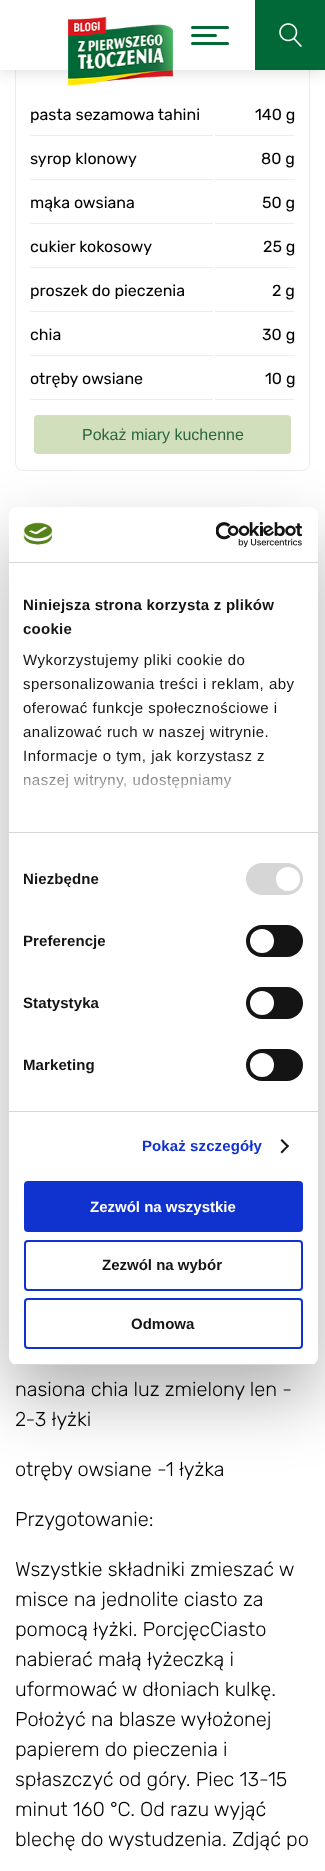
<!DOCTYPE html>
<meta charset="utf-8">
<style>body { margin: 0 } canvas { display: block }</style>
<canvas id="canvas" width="325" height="1871"></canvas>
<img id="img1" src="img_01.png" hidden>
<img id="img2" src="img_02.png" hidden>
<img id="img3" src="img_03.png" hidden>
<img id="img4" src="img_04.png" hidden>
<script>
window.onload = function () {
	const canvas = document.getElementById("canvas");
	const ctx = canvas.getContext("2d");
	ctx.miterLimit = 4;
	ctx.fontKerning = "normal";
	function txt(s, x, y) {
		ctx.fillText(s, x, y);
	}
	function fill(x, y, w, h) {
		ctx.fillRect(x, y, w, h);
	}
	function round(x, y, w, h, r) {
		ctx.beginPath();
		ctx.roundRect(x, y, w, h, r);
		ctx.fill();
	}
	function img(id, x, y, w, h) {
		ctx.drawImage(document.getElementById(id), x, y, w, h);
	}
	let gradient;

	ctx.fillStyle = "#FFFFFF";
	fill(0, 0, 325, 1871);
	ctx.beginPath();
	ctx.roundRect(15.5, -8.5, 294, 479, 7.5);
	ctx.strokeStyle = "#EDEDED";
	ctx.stroke();
	ctx.fillStyle = "rgba(35, 31, 32, 0.17)";
	ctx.filter = "blur(8px)";
	ctx.beginPath();
	ctx.rect(0, 1, 325, 70);
	ctx.fill();
	ctx.filter = "none";
	ctx.fillStyle = "#FFFFFF";
	fill(0, 0, 255, 70);
	img("img1", 68, 17, 105, 68);
	ctx.fillStyle = "#006937";
	round(191, 26, 38, 3, 1.5);
	round(191, 34, 26, 3, 1.5);
	round(191, 42, 38, 3, 1.5);
	fill(255, 0, 70, 70);
	img("img2", 279, 23, 23, 24);
	ctx.fillStyle = "#EDEDED";
	fill(30, 135, 183, 1);
	fill(215, 135, 80, 1);
	fill(30, 179, 183, 1);
	fill(215, 179, 80, 1);
	fill(30, 223, 183, 1);
	fill(215, 223, 80, 1);
	fill(30, 267, 183, 1);
	fill(215, 267, 80, 1);
	fill(30, 311, 183, 1);
	fill(215, 311, 80, 1);
	fill(30, 355, 183, 1);
	fill(215, 355, 80, 1);
	fill(30, 399, 183, 1);
	fill(215, 399, 80, 1);
	ctx.fillStyle = "#D1DFBC";
	round(34, 415, 257, 39, 4);
	ctx.fillStyle = "rgba(0, 0, 0, 0.3)";
	ctx.filter = "blur(34px)";
	ctx.beginPath();
	ctx.roundRect(9, 539, 309, 858, 8);
	ctx.fill();
	ctx.filter = "none";
	ctx.fillStyle = "#FFFFFF";
	round(9, 507, 309, 858, 8);
	ctx.fillStyle = "#D6D6D6";
	fill(9, 562, 309, 1);
	img("img3", 23, 522, 30, 23);
	img("img4", 216, 522, 87, 25);
	fill(9, 832, 309, 1);
	fill(9, 1111, 309, 1);
	round(246, 863, 57, 32, 16);
	ctx.fillStyle = "#FFFFFF";
	ctx.beginPath();
	ctx.arc(288, 879, 12, 0, Math.PI * 2);
	ctx.fill();
	ctx.fillStyle = "#141414";
	round(246, 925, 57, 32, 16);
	ctx.fillStyle = "#FFFFFF";
	ctx.beginPath();
	ctx.arc(262, 941, 12, 0, Math.PI * 2);
	ctx.fill();
	ctx.fillStyle = "#141414";
	round(246, 987, 57, 32, 16);
	ctx.fillStyle = "#FFFFFF";
	ctx.beginPath();
	ctx.arc(262, 1003, 12, 0, Math.PI * 2);
	ctx.fill();
	ctx.fillStyle = "#141414";
	round(246, 1049, 57, 32, 16);
	ctx.fillStyle = "#FFFFFF";
	ctx.beginPath();
	ctx.arc(262, 1065, 12, 0, Math.PI * 2);
	ctx.fill();
	ctx.fillStyle = "#141414";
	ctx.beginPath();
	ctx.moveTo(282, 1139);
	ctx.lineTo(289, 1146);
	ctx.lineTo(287.5, 1147.5);
	ctx.lineTo(280.5, 1140.5);
	ctx.closePath();
	ctx.fill();
	ctx.beginPath();
	ctx.moveTo(287.5, 1145);
	ctx.lineTo(289, 1146);
	ctx.lineTo(282, 1153.5);
	ctx.lineTo(280.5, 1152);
	ctx.closePath();
	ctx.fill();
	ctx.save();
	ctx.beginPath();
	ctx.roundRect(9, 507, 309, 858, 8);
	ctx.clip();
	ctx.fillStyle = "#D6D6D6";
	fill(9, 1364, 309, 1);
	ctx.restore();
	ctx.fillStyle = "#1032CF";
	ctx.beginPath();
	ctx.roundRect(25, 1182, 277, 49, 3);
	ctx.fill();
	ctx.strokeStyle = "#1032CF";
	ctx.lineWidth = 2;
	ctx.stroke();
	ctx.beginPath();
	ctx.roundRect(25, 1241, 277, 49, 3);
	ctx.stroke();
	ctx.beginPath();
	ctx.roundRect(25, 1299, 277, 49, 3);
	ctx.stroke();
	ctx.font = "16px Rubik";
	ctx.fillStyle = "#000000";
	txt("pasta sezamowa tahini", 30, 120);
	txt("140 g", 255, 120);
	txt("syrop klonowy", 30, 164);
	txt("80 g", 261, 164);
	txt("mąka owsiana", 30, 208);
	txt("50 g", 262, 208);
	txt("cukier kokosowy", 30, 252);
	txt("25 g", 263, 252);
	txt("proszek do pieczenia", 30, 296);
	txt("2 g", 272, 296);
	txt("chia", 30, 340);
	txt("30 g", 262, 340);
	txt("otręby owsiane", 30, 384);
	txt("10 g", 265, 384);
	ctx.font = "16px Liberation Sans";
	ctx.fillStyle = "#2C673C";
	txt("Pokaż miary kuchenne", 82, 440);
	ctx.font = "300 20px Rubik";
	ctx.fillStyle = "#000000";
	txt("nasiona chia luz zmielony len -", 15, 1396);
	txt("2-3 łyżki", 15, 1426);
	txt("otręby owsiane -1 łyżka", 15, 1476);
	txt("Przygotowanie:", 15, 1526);
	txt("Wszystkie składniki zmieszać w", 15, 1576);
	txt("misce na jednolite ciasto za", 15, 1606);
	txt("pomocą łyżki. PorcjęcCiasto", 15, 1636);
	txt("nabierać małą łyżeczką i", 15, 1666);
	txt("uformować w dłoniach kulkę.", 15, 1696);
	txt("Położyć na blasze wyłożonej", 15, 1726);
	txt("papierem do pieczenia i", 15, 1756);
	txt("spłaszczyć od góry. Piec 13-15", 15, 1786);
	txt("minut 160 °C. Od razu wyjąć", 15, 1816);
	txt("blechę do wystudzenia. Zdjąć po", 15, 1846);
	ctx.letterSpacing = "0.25px";
	ctx.font = "bold 15px Liberation Sans";
	ctx.fillStyle = "#141414";
	txt("Niniejsza strona korzysta z plików", 23, 610);
	txt("cookie", 23, 634);
	ctx.letterSpacing = "0.5px";
	ctx.font = "15px Liberation Sans";
	txt("Wykorzystujemy pliki cookie do", 23, 665);
	txt("spersonalizowania treści i reklam, aby", 23, 689);
	txt("oferować funkcje społecznościowe i", 23, 713);
	txt("analizować ruch w naszej witrynie.", 23, 737);
	txt("Informacje o tym, jak korzystasz z", 23, 761);
	txt("naszej witryny, udostępniamy", 23, 785);
	gradient = ctx.createLinearGradient(157, 832, 157, 757);
	gradient.addColorStop(0, "#FFFFFF");
	gradient.addColorStop(0.5, "rgba(255, 255, 255, 0.8)");
	gradient.addColorStop(1, "rgba(255, 255, 255, 0)");
	ctx.fillStyle = gradient;
	fill(24, 758, 240, 31);
	ctx.letterSpacing = "0.1px";
	ctx.font = "bold 15px Liberation Sans";
	ctx.fillStyle = "#141414";
	txt("Niezbędne", 23, 884);
	txt("Preferencje", 23, 946);
	txt("Statystyka", 23, 1008);
	txt("Marketing", 23, 1070);
	ctx.fillStyle = "#1032CF";
	txt("Pokaż szczegóły", 142, 1151);
	ctx.letterSpacing = "0px";
	ctx.fillStyle = "#FFFFFF";
	txt("Zezwól na wszystkie", 90, 1212);
	ctx.fillStyle = "#141414";
	txt("Zezwól na wybór", 102, 1270);
	txt("Odmowa", 131, 1329);
};
</script>
